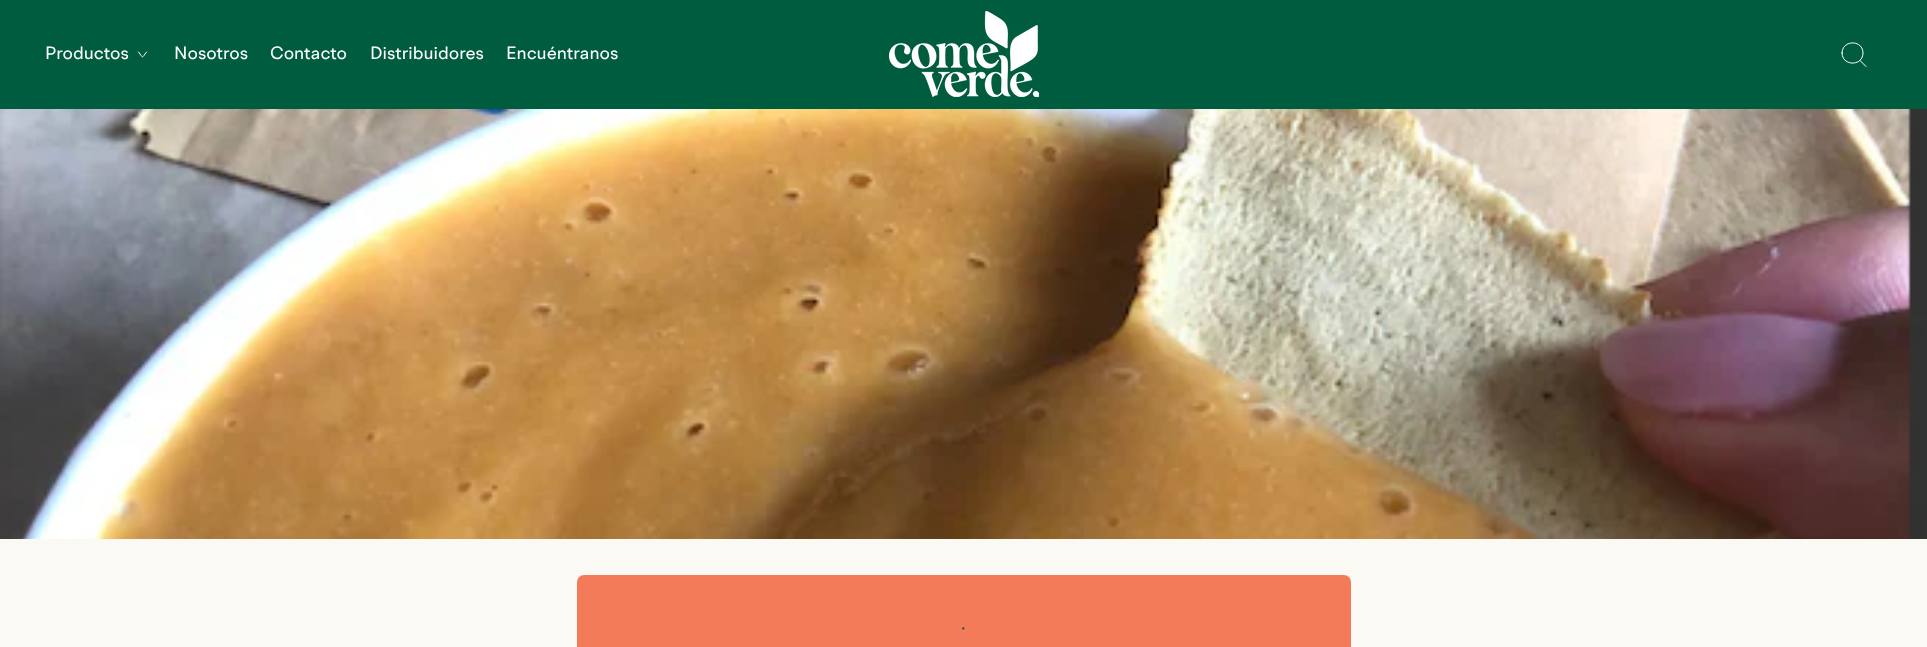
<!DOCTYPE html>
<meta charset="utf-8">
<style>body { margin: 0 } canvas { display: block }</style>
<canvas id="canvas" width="1927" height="647"></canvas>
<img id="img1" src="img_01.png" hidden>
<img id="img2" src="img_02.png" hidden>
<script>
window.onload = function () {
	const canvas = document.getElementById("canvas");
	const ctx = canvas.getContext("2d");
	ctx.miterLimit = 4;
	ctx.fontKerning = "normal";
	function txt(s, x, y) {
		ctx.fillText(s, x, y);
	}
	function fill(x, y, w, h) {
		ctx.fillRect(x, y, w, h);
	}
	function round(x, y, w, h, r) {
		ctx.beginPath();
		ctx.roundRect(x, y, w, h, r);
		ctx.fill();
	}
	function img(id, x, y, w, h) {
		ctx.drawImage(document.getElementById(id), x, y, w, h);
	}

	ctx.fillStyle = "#FAF9F4";
	fill(0, 0, 1927, 647);
	ctx.fillStyle = "#005C3E";
	fill(0, 0, 1927, 109);
	ctx.beginPath();
	ctx.moveTo(138.5, 52);
	ctx.bezierCurveTo(143.5, 58.5, 141.5, 58.5, 146.5, 52);
	ctx.strokeStyle = "#FFFFFF";
	ctx.lineCap = "round";
	ctx.lineJoin = "round";
	ctx.stroke();
	img("img1", 889, 11, 150, 86);
	ctx.beginPath();
	ctx.moveTo(1842, 53);
	ctx.bezierCurveTo(1842, 66.5, 1863, 66.5, 1863, 53);
	ctx.bezierCurveTo(1863, 39.5, 1842, 39.5, 1842, 53);
	ctx.closePath();
	ctx.moveTo(1866, 66.5);
	ctx.lineTo(1860, 60.5);
	ctx.stroke();
	img("img2", 0, 109, 1927, 430);
	ctx.fillStyle = "#F47B59";
	round(577, 575, 774, 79, 7);
	ctx.font = "18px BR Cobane";
	ctx.fillStyle = "#FFFFFF";
	txt("Productos", 45, 59);
	txt("Nosotros", 174, 59);
	txt("Contacto", 270, 59);
	txt("Distribuidores", 370, 59);
	txt("Encuéntranos", 506, 59);
	ctx.fillStyle = "#005C3E";
	txt("·", 961, 634);
};
</script>
